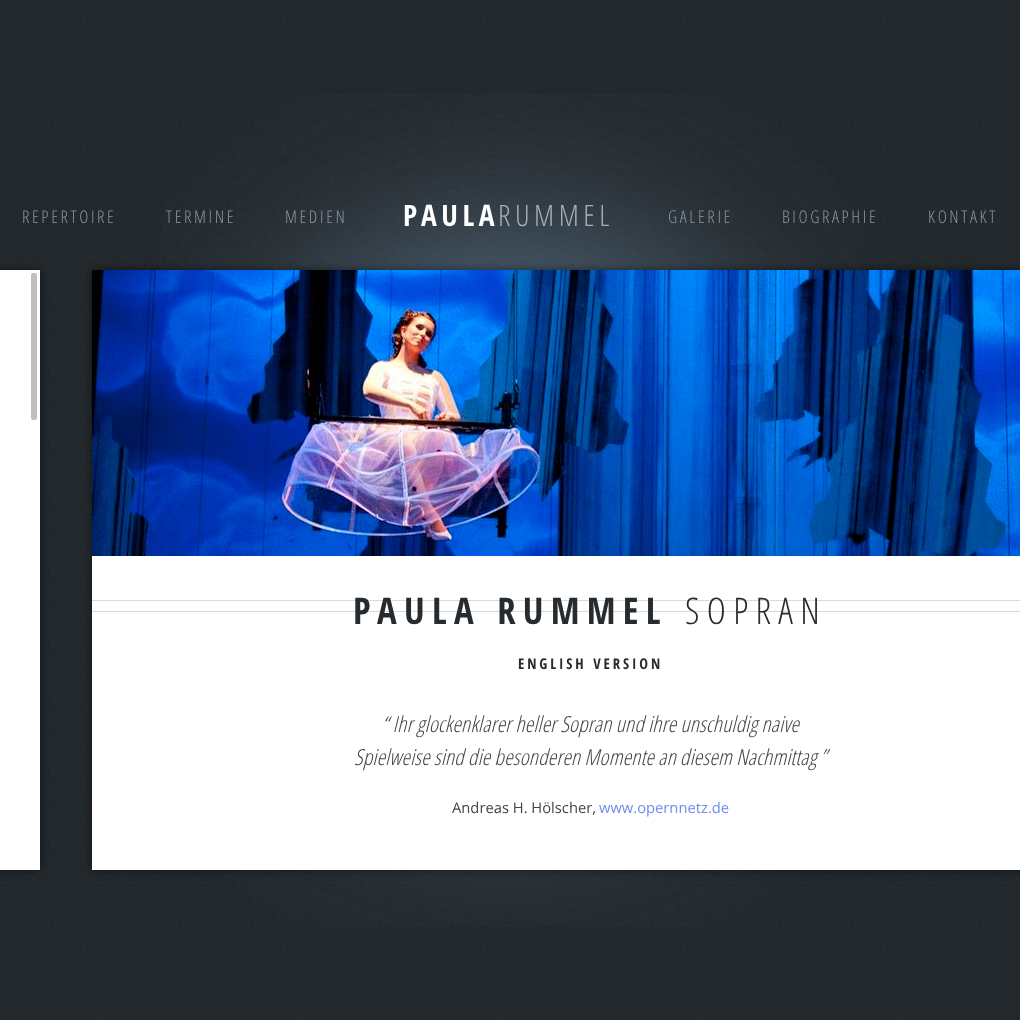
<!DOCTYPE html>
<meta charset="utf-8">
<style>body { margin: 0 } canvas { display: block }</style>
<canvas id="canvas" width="1020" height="1020"></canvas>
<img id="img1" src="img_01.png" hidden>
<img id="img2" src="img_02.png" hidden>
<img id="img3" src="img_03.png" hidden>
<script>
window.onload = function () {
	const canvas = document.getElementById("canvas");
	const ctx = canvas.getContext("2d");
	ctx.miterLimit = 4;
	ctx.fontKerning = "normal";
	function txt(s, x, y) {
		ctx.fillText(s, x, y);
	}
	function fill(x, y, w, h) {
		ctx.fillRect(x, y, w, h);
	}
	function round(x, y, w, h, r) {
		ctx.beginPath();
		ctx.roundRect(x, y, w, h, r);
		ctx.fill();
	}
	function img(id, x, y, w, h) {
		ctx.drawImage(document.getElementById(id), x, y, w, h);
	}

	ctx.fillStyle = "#FFFFFF";
	fill(0, 0, 1020, 1020);
	img("img1", 0, 0, 1020, 1020);
	img("img2", 160, 93, 702, 834);
	ctx.fillStyle = "rgba(0, 0, 0, 0.5)";
	ctx.filter = "blur(5px)";
	ctx.beginPath();
	ctx.rect(-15, 270, 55, 600);
	ctx.fill();
	ctx.filter = "none";
	ctx.fillStyle = "#FFFFFF";
	fill(0, 270, 40, 600);
	ctx.fillStyle = "#BFBFBF";
	round(31, 273, 6, 147, 2);
	ctx.fillStyle = "rgba(0, 0, 0, 0.5)";
	ctx.filter = "blur(5px)";
	ctx.beginPath();
	ctx.rect(92, 270, 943, 600);
	ctx.fill();
	ctx.filter = "none";
	ctx.fillStyle = "#FFFFFF";
	fill(92, 556, 928, 314);
	img("img3", 92, 270, 928, 286);
	ctx.fillStyle = "#D9D9D9";
	fill(92, 600, 928, 1);
	fill(92, 611, 928, 1);
	ctx.letterSpacing = "2.6px";
	ctx.font = "300 17.5px Open Sans Condensed";
	ctx.fillStyle = "#8B97A1";
	txt("REPERTOIRE", 22, 223);
	txt("TERMINE", 166, 223);
	txt("MEDIEN", 285, 223);
	ctx.letterSpacing = "4.5px";
	ctx.font = "bold 29.5px Open Sans Condensed";
	ctx.fillStyle = "#FFFFFF";
	txt("PAULA", 403, 226);
	ctx.font = "300 29.5px Open Sans Condensed";
	ctx.fillStyle = "#A4B0BB";
	txt("RUMMEL", 498, 226);
	ctx.letterSpacing = "2.6px";
	ctx.font = "300 17.5px Open Sans Condensed";
	ctx.fillStyle = "#8B97A1";
	txt("GALERIE", 668, 223);
	txt("BIOGRAPHIE", 782, 223);
	txt("KONTAKT", 928, 223);
	ctx.letterSpacing = "7.25px";
	ctx.font = "bold 36.75px Open Sans Condensed";
	ctx.fillStyle = "#252B2F";
	txt("PAULA RUMMEL", 353, 624);
	ctx.font = "300 36.75px Open Sans Condensed";
	txt("SOPRAN", 685, 624);
	ctx.letterSpacing = "2.9px";
	ctx.font = "bold 14.75px Open Sans Condensed";
	txt("ENGLISH VERSION", 518, 669);
	ctx.letterSpacing = "0px";
	ctx.font = "italic 300 22px Open Sans Condensed";
	ctx.fillStyle = "#424548";
	txt("“ Ihr glockenklarer heller Sopran und ihre unschuldig naive", 382, 732);
	txt("Spielweise sind die besonderen Momente an diesem Nachmittag ”", 354, 765);
	ctx.font = "14.75px Open Sans";
	txt("Andreas H. Hölscher,", 452, 813);
	ctx.fillStyle = "#6D8CF0";
	txt("www.opernnetz.de", 599, 813);
};
</script>
